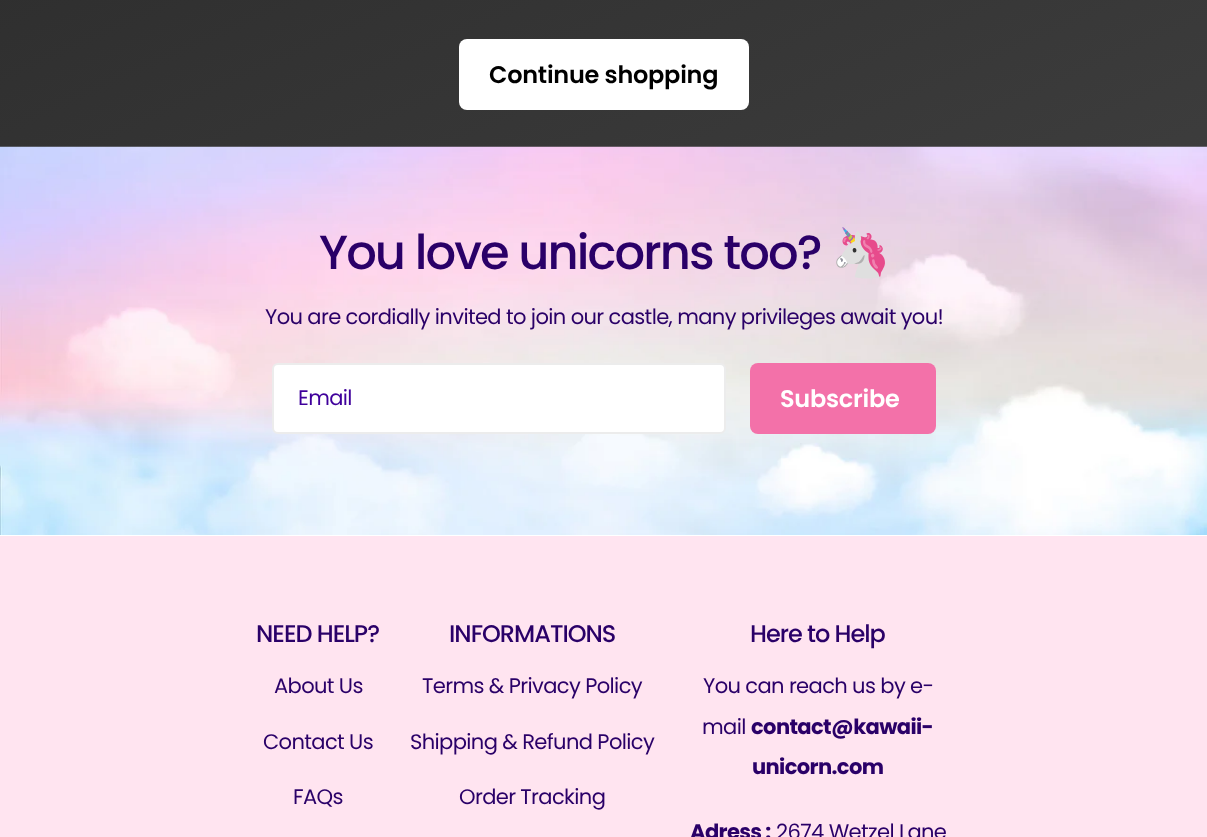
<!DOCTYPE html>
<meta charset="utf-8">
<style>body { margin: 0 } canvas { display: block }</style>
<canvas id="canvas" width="1207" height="837"></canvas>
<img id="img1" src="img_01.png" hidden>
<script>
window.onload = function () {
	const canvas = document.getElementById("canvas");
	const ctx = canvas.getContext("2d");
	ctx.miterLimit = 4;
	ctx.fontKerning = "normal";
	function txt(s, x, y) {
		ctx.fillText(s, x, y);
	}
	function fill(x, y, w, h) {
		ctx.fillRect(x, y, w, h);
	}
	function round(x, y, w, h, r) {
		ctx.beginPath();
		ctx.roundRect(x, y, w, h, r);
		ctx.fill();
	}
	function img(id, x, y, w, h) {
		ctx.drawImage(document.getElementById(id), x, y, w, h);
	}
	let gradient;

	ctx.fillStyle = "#FFFFFF";
	fill(0, 0, 1207, 837);
	gradient = ctx.createLinearGradient(999, 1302, 208, -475);
	gradient.addColorStop(0.04, "#4F4F4F");
	gradient.addColorStop(1, "#282828");
	ctx.fillStyle = gradient;
	fill(0, 0, 1207, 147);
	ctx.fillStyle = "#FFFFFF";
	round(459, 39, 290, 71, 8);
	img("img1", 0, 146, 1207, 389);
	ctx.beginPath();
	ctx.roundRect(273, 364, 452, 69, 5);
	ctx.fill();
	ctx.strokeStyle = "#ECECEC";
	ctx.lineWidth = 2;
	ctx.stroke();
	ctx.fillStyle = "#F371A9";
	round(750, 363, 186, 71, 8);
	ctx.fillStyle = "#FFE4F0";
	fill(0, 536, 1207, 301);
	ctx.letterSpacing = "-0.25px";
	ctx.font = "600 24px Poppins";
	ctx.fillStyle = "#000000";
	txt("Continue shopping", 489, 83);
	ctx.letterSpacing = "-1.9px";
	ctx.font = "500 48px Poppins";
	ctx.fillStyle = "#2A0068";
	txt("You love unicorns too?", 319, 269);
	ctx.font = "48px Noto Color Emoji";
	txt("🦄", 831, 269);
	ctx.letterSpacing = "-0.63px";
	ctx.font = "21.05px Poppins";
	txt("You are cordially invited to join our castle, many privileges await you!", 265, 324);
	ctx.fillStyle = "#3F009B";
	txt("Email", 298, 405);
	ctx.letterSpacing = "-0.25px";
	ctx.font = "600 24px Poppins";
	ctx.fillStyle = "#FFFFFF";
	txt("Subscribe", 780, 407);
	ctx.letterSpacing = "-1px";
	ctx.font = "500 24px Poppins";
	ctx.fillStyle = "#2A0068";
	txt("NEED HELP?", 256, 642);
	ctx.letterSpacing = "-0.63px";
	ctx.font = "21.05px Poppins";
	txt("About Us", 274, 693);
	txt("Contact Us", 263, 749);
	txt("FAQs", 293, 804);
	ctx.letterSpacing = "-1px";
	ctx.font = "500 24px Poppins";
	txt("INFORMATIONS", 449, 642);
	ctx.letterSpacing = "-0.63px";
	ctx.font = "21.05px Poppins";
	txt("Terms & Privacy Policy", 422, 693);
	txt("Shipping & Refund Policy", 410, 749);
	txt("Order Tracking", 459, 804);
	ctx.letterSpacing = "-1px";
	ctx.font = "500 24px Poppins";
	txt("Here to Help", 750, 642);
	ctx.letterSpacing = "-0.63px";
	ctx.font = "21.05px Poppins";
	txt("You can reach us by e-", 703, 693);
	txt("mail", 702, 734);
	ctx.font = "bold 21.05px Poppins";
	txt("contact@kawaii-", 751, 734);
	txt("unicorn.com", 752, 774);
	txt("Adress :", 690, 839);
	ctx.font = "21.05px Poppins";
	txt("2674 Wetzel Lane", 776, 839);
};
</script>
